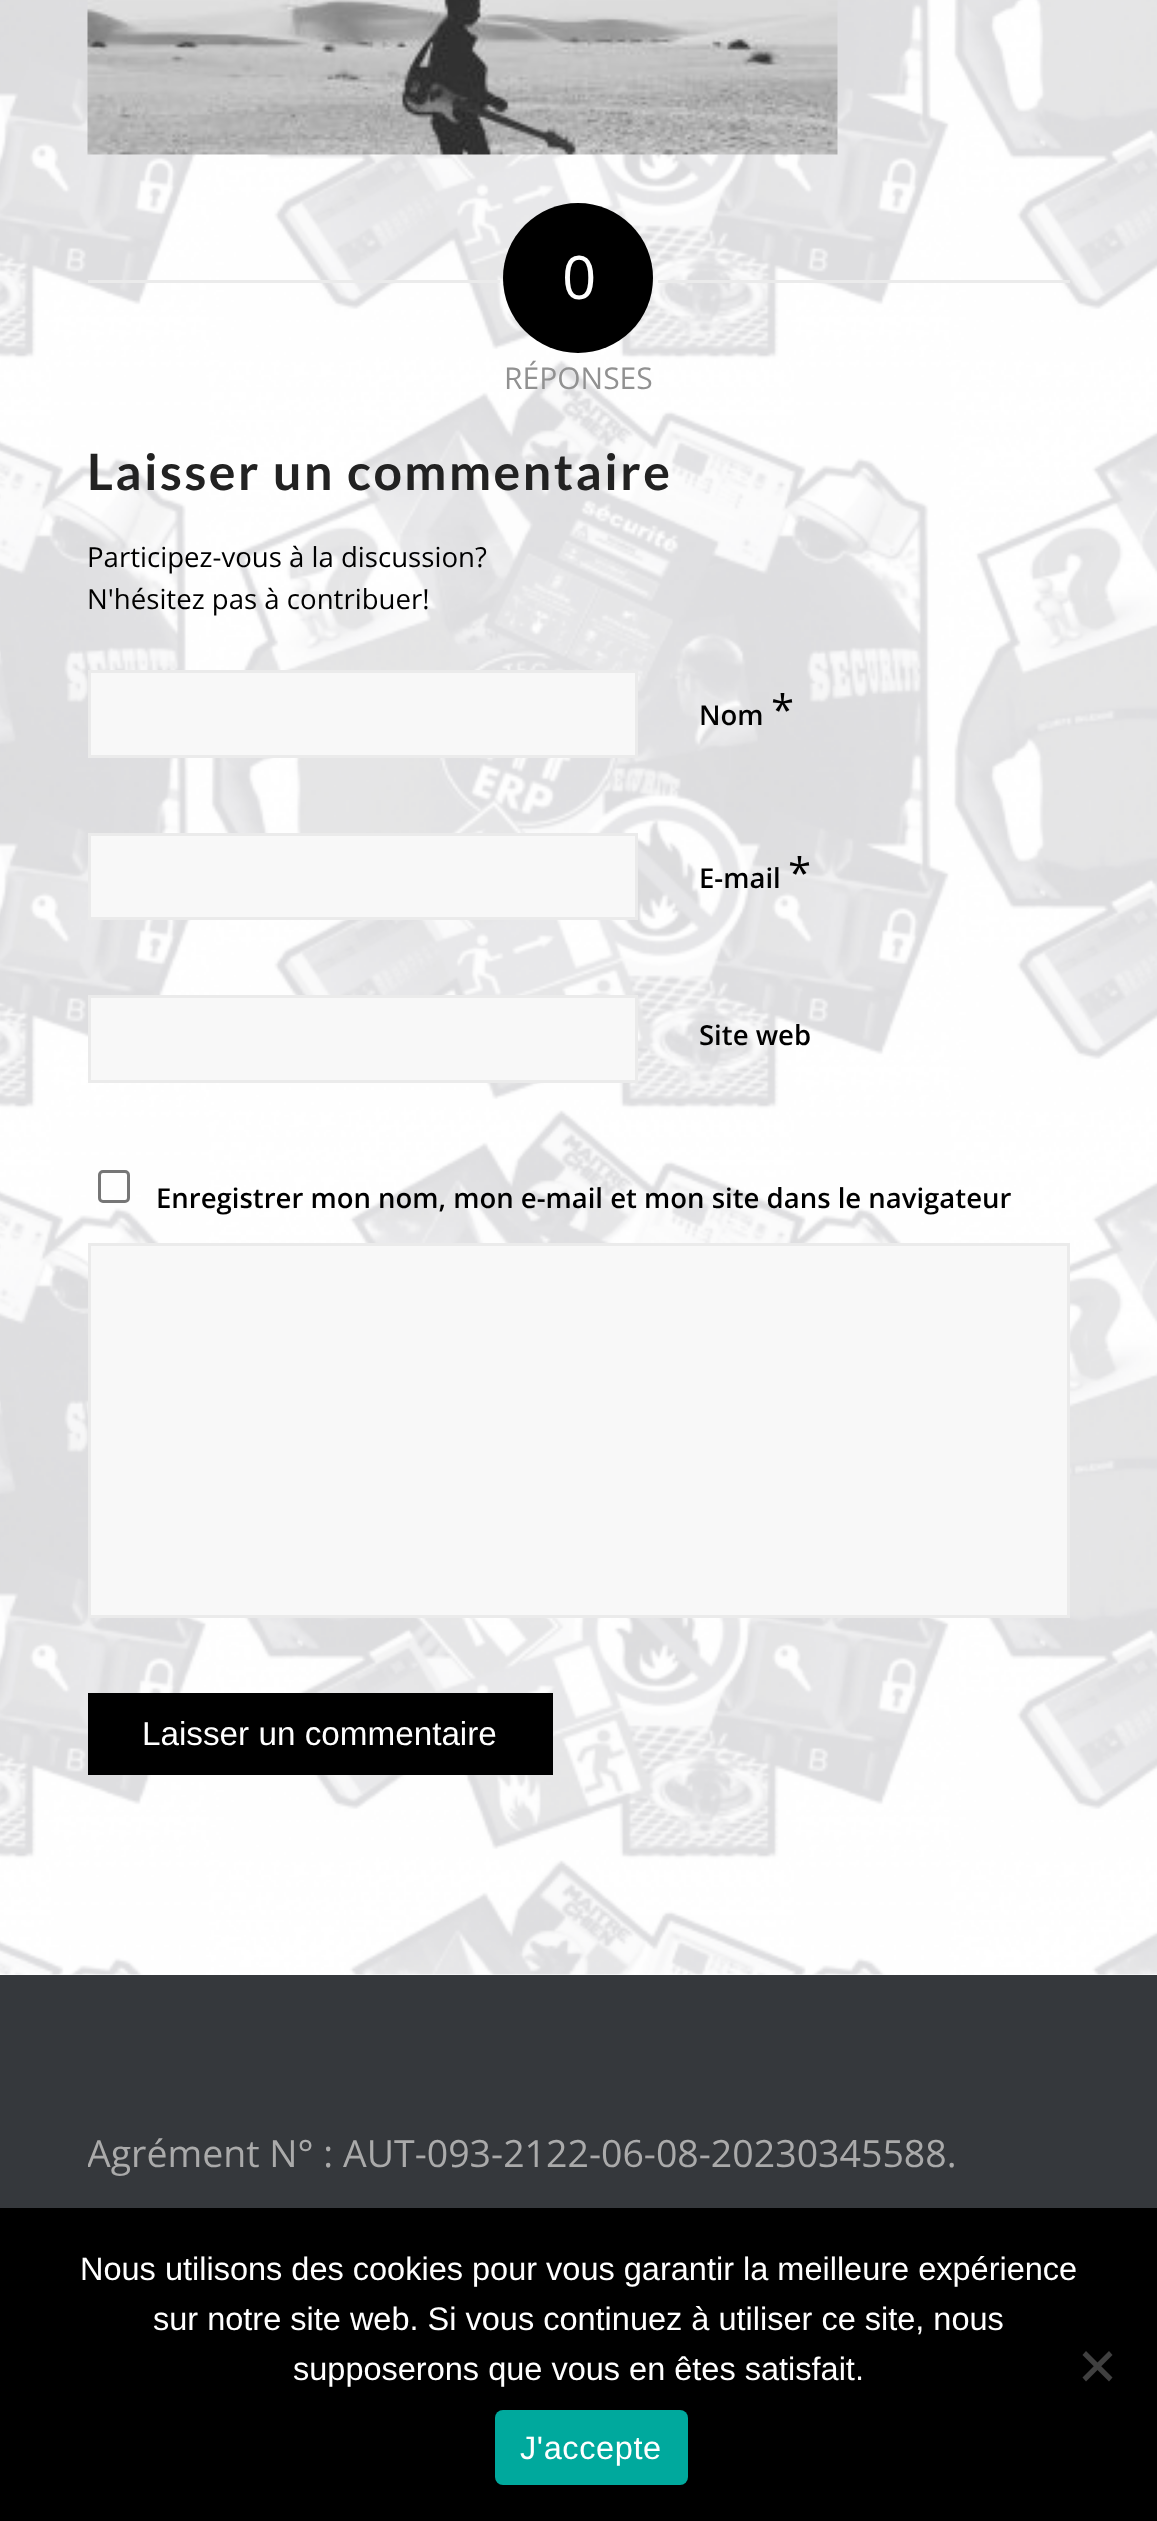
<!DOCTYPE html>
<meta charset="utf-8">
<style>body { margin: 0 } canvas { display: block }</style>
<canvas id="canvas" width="1157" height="2521"></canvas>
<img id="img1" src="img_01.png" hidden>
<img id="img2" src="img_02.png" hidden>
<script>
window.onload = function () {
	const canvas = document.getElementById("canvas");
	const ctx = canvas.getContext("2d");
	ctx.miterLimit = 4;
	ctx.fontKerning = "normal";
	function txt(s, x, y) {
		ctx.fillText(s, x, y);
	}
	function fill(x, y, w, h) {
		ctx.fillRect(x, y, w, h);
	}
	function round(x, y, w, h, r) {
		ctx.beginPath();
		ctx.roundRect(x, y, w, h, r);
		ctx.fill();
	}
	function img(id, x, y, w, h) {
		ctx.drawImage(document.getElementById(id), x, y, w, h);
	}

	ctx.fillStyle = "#FFFFFF";
	fill(0, 0, 1157, 2521);
	img("img1", 0, 0, 1157, 1975);
	img("img2", 87, 0, 751, 155);
	ctx.fillStyle = "#EBEBEB";
	fill(88, 280, 412, 3);
	ctx.fillStyle = "#000000";
	ctx.beginPath();
	ctx.arc(578, 278, 75, 0, Math.PI * 2);
	ctx.fill();
	ctx.fillStyle = "#EBEBEB";
	fill(658, 280, 412, 3);
	ctx.fillStyle = "#F8F8F8";
	ctx.beginPath();
	ctx.rect(89.5, 671.5, 547, 85);
	ctx.fill();
	ctx.strokeStyle = "#EBEBEB";
	ctx.lineWidth = 3;
	ctx.stroke();
	ctx.beginPath();
	ctx.rect(89.5, 834.5, 547, 84);
	ctx.fill();
	ctx.stroke();
	ctx.beginPath();
	ctx.rect(89.5, 996.5, 547, 85);
	ctx.fill();
	ctx.stroke();
	ctx.beginPath();
	ctx.roundRect(99.5, 1171.5, 29, 30, 3.5);
	ctx.strokeStyle = "#767676";
	ctx.stroke();
	ctx.beginPath();
	ctx.rect(89.5, 1244.5, 979, 372);
	ctx.fill();
	ctx.strokeStyle = "#EBEBEB";
	ctx.stroke();
	ctx.fillStyle = "#000000";
	fill(88, 1693, 465, 82);
	ctx.fillStyle = "#35383C";
	fill(0, 1975, 1157, 233);
	ctx.fillStyle = "#000000";
	fill(0, 2208, 1157, 313);
	ctx.fillStyle = "#404040";
	ctx.beginPath();
	ctx.moveTo(1109, 2351);
	ctx.lineTo(1112.5, 2355);
	ctx.lineTo(1086, 2381.5);
	ctx.lineTo(1082.5, 2377.5);
	ctx.closePath();
	ctx.fill();
	ctx.beginPath();
	ctx.moveTo(1082.5, 2355);
	ctx.lineTo(1086, 2351);
	ctx.lineTo(1112.5, 2377.5);
	ctx.lineTo(1109, 2381.5);
	ctx.closePath();
	ctx.fill();
	ctx.fillStyle = "#00A99D";
	round(495, 2410, 193, 75, 8);
	ctx.font = "60px Open Sans";
	ctx.fillStyle = "#FFFFFF";
	txt("0", 562, 299);
	ctx.font = "30px Open Sans";
	ctx.fillStyle = "#919191";
	txt("RÉPONSES", 504, 389);
	ctx.letterSpacing = "2.5px";
	ctx.font = "bold 50px Lato";
	ctx.fillStyle = "#222222";
	txt("Laisser un commentaire", 87, 490);
	ctx.letterSpacing = "0px";
	ctx.font = "27.6px Open Sans";
	ctx.fillStyle = "#000000";
	txt("Participez-vous à la discussion?", 87, 567);
	txt("N'hésitez pas à contribuer!", 87, 609);
	ctx.font = "42px Open Sans";
	txt("*", 771, 725);
	ctx.font = "600 27.5px Open Sans";
	txt("Nom", 699, 725);
	ctx.font = "42px Open Sans";
	txt("*", 788, 888);
	ctx.font = "600 27.5px Open Sans";
	txt("E-mail", 699, 888);
	txt("Site web", 699, 1045);
	txt("Enregistrer mon nom, mon e-mail et mon site dans le navigateur", 156, 1208);
	ctx.font = "33.25px Liberation Sans";
	ctx.fillStyle = "#FFFFFF";
	txt("Laisser un commentaire", 142, 1745);
	ctx.save();
	ctx.beginPath();
	ctx.rect(88, 2090, 982, 365);
	ctx.clip();
	ctx.font = "37.5px Open Sans";
	ctx.fillStyle = "#AAAAAA";
	txt("Agrément N° : AUT-093-2122-06-08-20230345588.", 87, 2167);
	ctx.restore();
	ctx.font = "32.5px Liberation Sans";
	txt("Nous utilisons des cookies pour vous garantir la meilleure expérience", 80, 2280);
	txt("sur notre site web. Si vous continuez à utiliser ce site, nous", 153, 2330);
	txt("supposerons que vous en êtes satisfait.", 293, 2380);
	ctx.letterSpacing = "0.6px";
	txt("J'accepte", 520, 2459);
};
</script>
